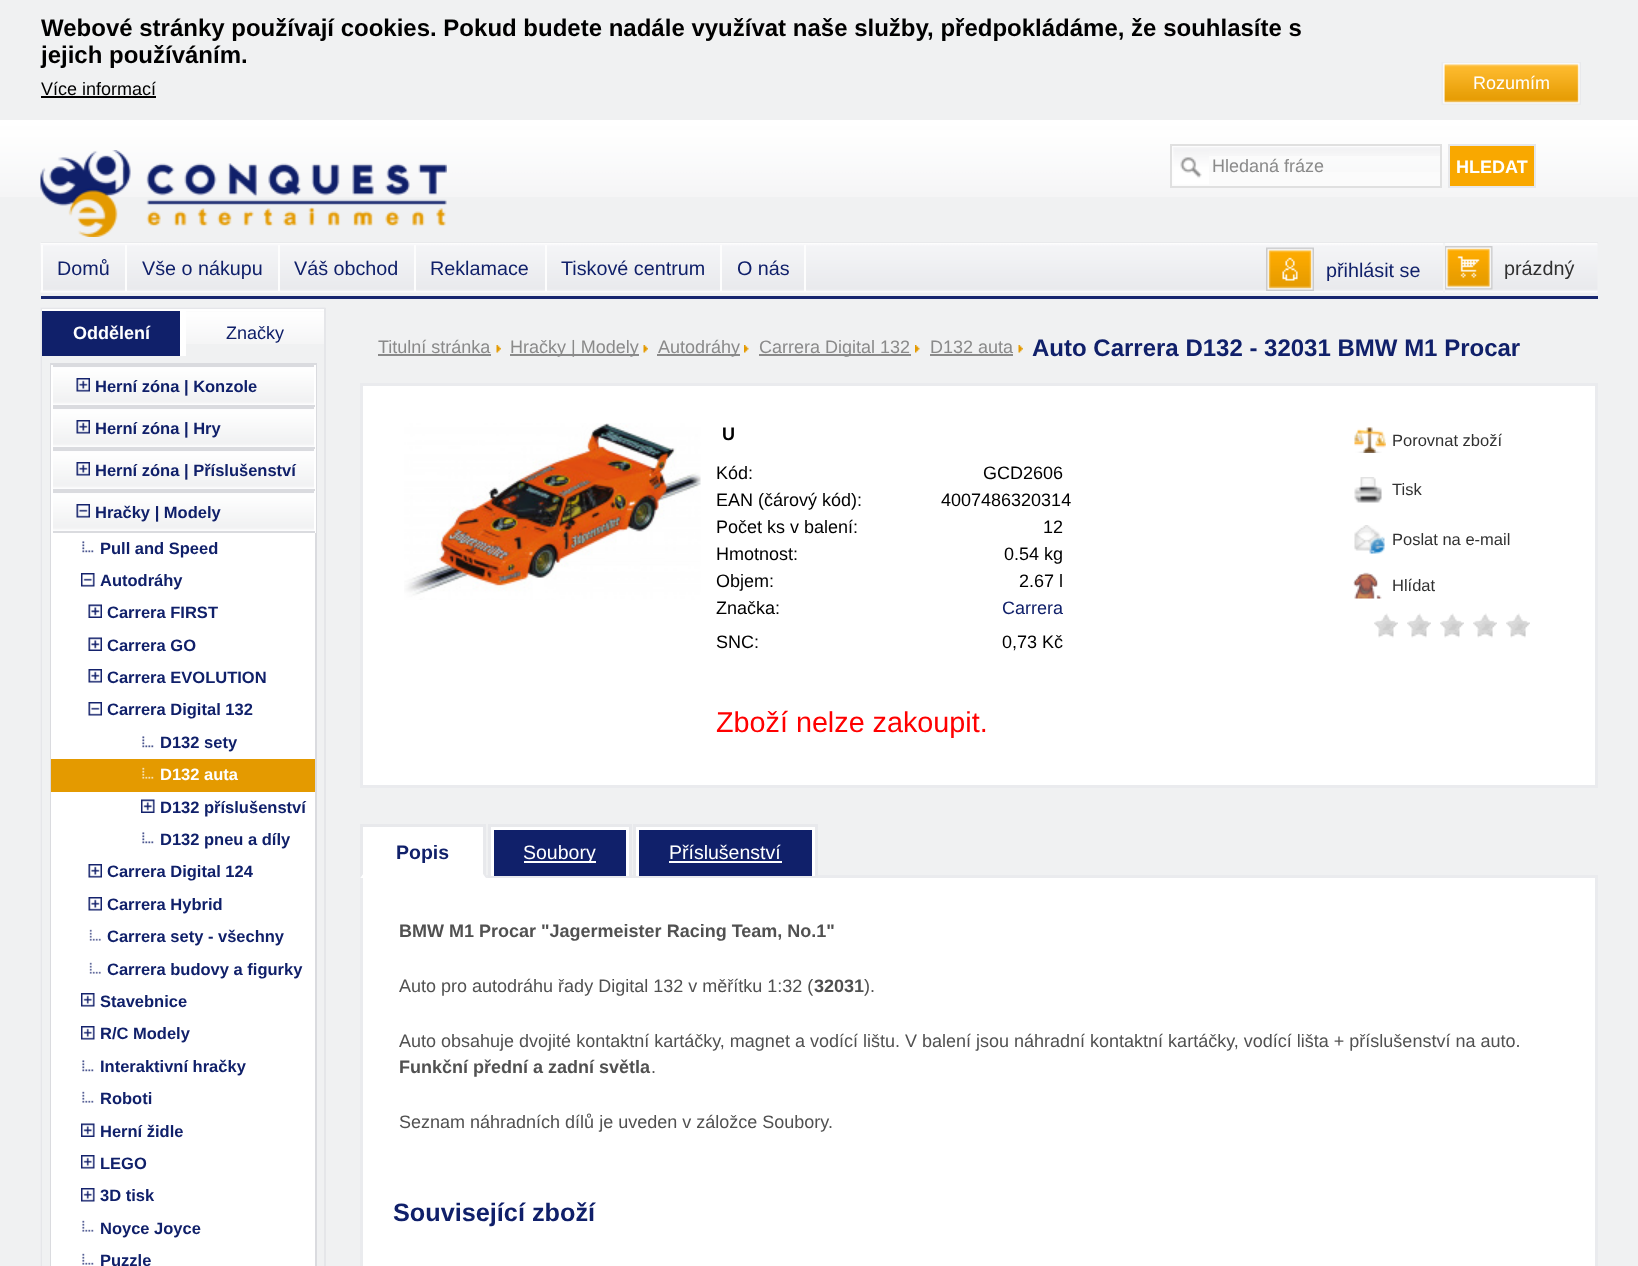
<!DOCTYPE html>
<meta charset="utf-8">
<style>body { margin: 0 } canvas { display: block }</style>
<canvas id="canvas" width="1638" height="1266"></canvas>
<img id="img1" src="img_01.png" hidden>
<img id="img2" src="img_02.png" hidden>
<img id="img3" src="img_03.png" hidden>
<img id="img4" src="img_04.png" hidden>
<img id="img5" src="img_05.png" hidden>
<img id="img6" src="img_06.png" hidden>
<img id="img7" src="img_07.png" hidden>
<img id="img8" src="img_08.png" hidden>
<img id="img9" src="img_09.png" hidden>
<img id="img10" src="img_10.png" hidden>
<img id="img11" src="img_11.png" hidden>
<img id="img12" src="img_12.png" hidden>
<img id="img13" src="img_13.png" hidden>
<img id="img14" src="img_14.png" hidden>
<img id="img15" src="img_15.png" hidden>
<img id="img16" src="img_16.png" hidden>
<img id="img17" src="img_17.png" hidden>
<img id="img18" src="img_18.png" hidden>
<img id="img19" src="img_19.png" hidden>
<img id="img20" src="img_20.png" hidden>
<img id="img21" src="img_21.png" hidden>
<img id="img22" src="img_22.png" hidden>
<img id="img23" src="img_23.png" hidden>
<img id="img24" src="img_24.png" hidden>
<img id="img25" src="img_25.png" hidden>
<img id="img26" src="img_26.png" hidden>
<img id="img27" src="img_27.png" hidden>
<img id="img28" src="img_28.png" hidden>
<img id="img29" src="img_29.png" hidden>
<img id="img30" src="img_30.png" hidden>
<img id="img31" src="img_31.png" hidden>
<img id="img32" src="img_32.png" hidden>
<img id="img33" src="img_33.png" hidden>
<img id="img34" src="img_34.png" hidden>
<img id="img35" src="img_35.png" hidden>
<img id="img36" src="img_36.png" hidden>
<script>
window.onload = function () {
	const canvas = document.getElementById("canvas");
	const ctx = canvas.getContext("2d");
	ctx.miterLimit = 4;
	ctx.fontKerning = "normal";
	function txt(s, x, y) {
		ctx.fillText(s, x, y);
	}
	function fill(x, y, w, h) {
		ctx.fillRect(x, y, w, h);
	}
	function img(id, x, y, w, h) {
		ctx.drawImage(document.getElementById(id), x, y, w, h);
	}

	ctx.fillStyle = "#F0F1F2";
	fill(0, 0, 1638, 1266);
	img("img1", 0, 120, 1638, 77);
	ctx.fillStyle = "#000000";
	fill(41, 96, 115, 2);
	img("img2", 1441, 62, 140, 43);
	ctx.fillStyle = "#E9EAEC";
	fill(41, 242, 1557, 2);
	img("img3", 40, 150, 407, 87);
	img("img4", 1172, 147, 37, 39);
	ctx.strokeStyle = "#E0E0E0";
	ctx.lineWidth = 2;
	ctx.strokeRect(1171, 145, 270, 42);
	ctx.fillStyle = "#FBFBFB";
	fill(1209, 172, 231, 14);
	img("img5", 1209, 147, 231, 9);
	ctx.fillStyle = "#F9A800";
	ctx.beginPath();
	ctx.rect(1449, 145, 86, 42);
	ctx.fill();
	ctx.strokeStyle = "#E7E8EB";
	ctx.stroke();
	img("img6", 40, 243, 1558, 50);
	ctx.fillStyle = "#18276F";
	fill(41, 296, 1557, 3);
	ctx.fillStyle = "#FDFDFD";
	fill(125, 245, 2, 46);
	fill(41, 245, 2, 46);
	fill(278, 245, 2, 46);
	fill(414, 245, 2, 46);
	fill(545, 245, 2, 46);
	fill(720, 245, 2, 46);
	fill(804, 245, 2, 46);
	img("img7", 1266, 247, 48, 44);
	ctx.fillStyle = "#F3F4F5";
	fill(1443, 243, 2, 51);
	img("img8", 1445, 246, 48, 44);
	img("img9", 40, 307, 286, 959);
	ctx.strokeStyle = "#E5E6E9";
	ctx.strokeRect(42, 309, 283, 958);
	ctx.fillStyle = "#FFFFFF";
	fill(42, 309, 282, 47);
	ctx.fillStyle = "#10206A";
	fill(42, 311, 138, 45);
	ctx.fillStyle = "#F0F1F2";
	fill(186, 344, 138, 12);
	img("img10", 186, 311, 138, 33);
	fill(42, 356, 282, 910);
	ctx.strokeStyle = "#DADBDF";
	ctx.strokeRect(51, 364, 265, 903);
	img("img11", 53, 367, 261, 38);
	ctx.fillStyle = "#DADBDF";
	fill(51, 365, 264, 2);
	ctx.fillStyle = "#FFFFFF";
	fill(314, 365, 2, 42);
	ctx.fillStyle = "#DADBDF";
	fill(51, 405, 264, 4);
	ctx.fillStyle = "#FFFFFF";
	fill(51, 365, 2, 42);
	img("img12", 76, 378, 14, 14);
	img("img13", 53, 409, 261, 38);
	fill(314, 407, 2, 42);
	ctx.fillStyle = "#DADBDF";
	fill(51, 447, 264, 4);
	ctx.fillStyle = "#FFFFFF";
	fill(51, 407, 2, 42);
	img("img12", 76, 420, 14, 14);
	img("img14", 53, 451, 261, 38);
	fill(314, 449, 2, 42);
	ctx.fillStyle = "#DADBDF";
	fill(51, 489, 264, 4);
	ctx.fillStyle = "#FFFFFF";
	fill(51, 449, 2, 42);
	img("img12", 76, 462, 14, 14);
	img("img14", 53, 493, 261, 38);
	fill(314, 491, 2, 42);
	ctx.fillStyle = "#DADBDF";
	fill(51, 531, 264, 2);
	ctx.fillStyle = "#FFFFFF";
	fill(51, 491, 2, 42);
	img("img15", 76, 504, 14, 14);
	fill(51, 533, 264, 226);
	img("img16", 82, 541, 12, 12);
	img("img17", 81, 573, 14, 14);
	img("img18", 88, 604, 14, 14);
	img("img18", 88, 637, 14, 14);
	img("img19", 88, 669, 14, 14);
	img("img20", 88, 702, 14, 14);
	img("img16", 142, 736, 12, 12);
	ctx.fillStyle = "#E49A00";
	fill(51, 759, 264, 33);
	img("img21", 142, 767, 12, 12);
	ctx.fillStyle = "#FFFFFF";
	fill(51, 792, 264, 474);
	img("img22", 141, 799, 14, 14);
	img("img16", 142, 832, 12, 12);
	img("img19", 88, 864, 14, 14);
	img("img19", 88, 897, 14, 14);
	img("img23", 89, 929, 12, 12);
	img("img23", 89, 962, 12, 12);
	img("img24", 81, 993, 14, 14);
	img("img24", 81, 1026, 14, 14);
	img("img16", 82, 1060, 12, 12);
	img("img25", 82, 1091, 12, 12);
	img("img22", 81, 1123, 14, 14);
	img("img24", 81, 1155, 14, 14);
	img("img24", 81, 1188, 14, 14);
	img("img25", 82, 1220, 12, 12);
	img("img25", 82, 1253, 12, 12);
	ctx.fillStyle = "#8A8A8A";
	fill(378, 354, 113, 2);
	img("img26", 496, 345, 5, 8);
	fill(510, 354, 129, 2);
	img("img27", 643, 345, 5, 8);
	fill(657, 354, 83, 2);
	img("img28", 744, 345, 5, 8);
	fill(759, 354, 152, 2);
	img("img29", 915, 345, 5, 8);
	fill(930, 354, 83, 2);
	img("img26", 1018, 345, 5, 8);
	ctx.fillStyle = "#FFFFFF";
	ctx.beginPath();
	ctx.rect(361.5, 384.5, 1235, 402);
	ctx.fill();
	ctx.strokeStyle = "#EAEBEE";
	ctx.lineWidth = 3;
	ctx.stroke();
	img("img30", 404, 423, 297, 177);
	img("img31", 1354, 427, 32, 26);
	img("img32", 1354, 477, 28, 26);
	img("img33", 1354, 525, 31, 29);
	img("img34", 1353, 572, 29, 27);
	img("img35", 1374, 613, 24, 25);
	img("img35", 1407, 613, 24, 25);
	img("img35", 1440, 613, 24, 25);
	img("img36", 1473, 613, 24, 25);
	img("img36", 1506, 613, 24, 25);
	ctx.fillStyle = "#E8E9EC";
	fill(360, 824, 126, 3);
	ctx.fillStyle = "#FFFFFF";
	ctx.beginPath();
	ctx.rect(361.5, 876.5, 1235, 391);
	ctx.fill();
	ctx.stroke();
	ctx.fillStyle = "#E8E9EC";
	ctx.beginPath();
	ctx.moveTo(486, 824);
	ctx.lineTo(486, 878);
	ctx.lineTo(483, 874);
	ctx.lineTo(483, 826);
	ctx.closePath();
	ctx.fill();
	ctx.fillStyle = "#FFFFFF";
	ctx.beginPath();
	ctx.moveTo(486, 878);
	ctx.lineTo(360, 878);
	ctx.lineTo(363, 874);
	ctx.lineTo(483, 874);
	ctx.closePath();
	ctx.fill();
	ctx.fillStyle = "#E8E9EC";
	ctx.beginPath();
	ctx.moveTo(360, 878);
	ctx.lineTo(360, 824);
	ctx.lineTo(363, 826);
	ctx.lineTo(363, 874);
	ctx.closePath();
	ctx.fill();
	ctx.fillStyle = "#FFFFFF";
	fill(363, 827, 120, 47);
	ctx.strokeStyle = "#E8E9EC";
	ctx.strokeRect(489.5, 825.5, 141, 51);
	ctx.fillStyle = "#10206A";
	fill(494, 830, 132, 46);
	ctx.fillStyle = "#FFFFFF";
	fill(491, 827, 138, 3);
	fill(626, 827, 3, 49);
	fill(491, 827, 3, 49);
	fill(524, 861, 72, 2);
	ctx.strokeRect(634.5, 825.5, 182, 51);
	ctx.fillStyle = "#10206A";
	fill(639, 830, 173, 46);
	ctx.fillStyle = "#FFFFFF";
	fill(636, 827, 179, 3);
	fill(812, 827, 3, 49);
	fill(636, 827, 3, 49);
	fill(669, 861, 113, 2);
	ctx.font = "bold 24px Liberation Sans";
	ctx.fillStyle = "#000000";
	txt("Webové stránky používají cookies. Pokud budete nadále využívat naše služby, předpokládáme, že souhlasíte s", 41, 36);
	txt("jejich používáním.", 41, 63);
	ctx.font = "18px Liberation Sans";
	txt("Více informací", 41, 95);
	ctx.fillStyle = "#FFFFFF";
	txt("Rozumím", 1473, 89);
	ctx.fillStyle = "#8A8A8A";
	txt("Hledaná fráze", 1212, 172);
	ctx.font = "bold 18px Liberation Sans";
	ctx.fillStyle = "#FFFFFF";
	txt("HLEDAT", 1456, 173);
	ctx.font = "19.75px Liberation Sans";
	ctx.fillStyle = "#10206A";
	txt("Domů", 57, 275);
	txt("Vše o nákupu", 142, 275);
	txt("Váš obchod", 294, 275);
	txt("Reklamace", 430, 275);
	txt("Tiskové centrum", 561, 275);
	txt("O nás", 737, 275);
	txt("přihlásit se", 1326, 277);
	ctx.fillStyle = "#313131";
	txt("prázdný", 1504, 275);
	ctx.font = "bold 18px Liberation Sans";
	ctx.fillStyle = "#FFFFFF";
	txt("Oddělení", 73, 339);
	ctx.font = "18px Liberation Sans";
	ctx.fillStyle = "#10206A";
	txt("Značky", 226, 339);
	ctx.font = "bold 16.5px Liberation Sans";
	txt("Herní zóna | Konzole", 95, 392);
	txt("Herní zóna | Hry", 95, 434);
	txt("Herní zóna | Příslušenství", 95, 476);
	txt("Hračky | Modely", 95, 518);
	txt("Pull and Speed", 100, 554);
	txt("Autodráhy", 100, 586);
	txt("Carrera FIRST", 107, 618);
	txt("Carrera GO", 107, 651);
	txt("Carrera EVOLUTION", 107, 683);
	txt("Carrera Digital 132", 107, 715);
	txt("D132 sety", 160, 748);
	ctx.fillStyle = "#FFFFFF";
	txt("D132 auta", 160, 780);
	ctx.fillStyle = "#10206A";
	txt("D132 příslušenství", 160, 813);
	txt("D132 pneu a díly", 160, 845);
	txt("Carrera Digital 124", 107, 877);
	txt("Carrera Hybrid", 107, 910);
	txt("Carrera sety - všechny", 107, 942);
	txt("Carrera budovy a figurky", 107, 975);
	txt("Stavebnice", 100, 1007);
	txt("R/C Modely", 100, 1039);
	txt("Interaktivní hračky", 100, 1072);
	txt("Roboti", 100, 1104);
	txt("Herní židle", 100, 1137);
	txt("LEGO", 100, 1169);
	txt("3D tisk", 100, 1201);
	txt("Noyce Joyce", 100, 1234);
	txt("Puzzle", 100, 1266);
	ctx.font = "18px Liberation Sans";
	ctx.fillStyle = "#8A8A8A";
	txt("Titulní stránka", 378, 353);
	txt("Hračky | Modely", 510, 353);
	txt("Autodráhy", 658, 353);
	txt("Carrera Digital 132", 759, 353);
	txt("D132 auta", 930, 353);
	ctx.font = "bold 24px Liberation Sans";
	ctx.fillStyle = "#10206A";
	txt("Auto Carrera D132 - 32031 BMW M1 Procar", 1032, 356);
	ctx.font = "bold 18px Liberation Sans";
	ctx.fillStyle = "#000000";
	txt("U", 722, 440);
	ctx.font = "18px Liberation Sans";
	txt("Kód:", 716, 479);
	txt("GCD2606", 983, 479);
	txt("EAN (čárový kód):", 716, 506);
	txt("4007486320314", 941, 506);
	txt("Počet ks v balení:", 716, 533);
	txt("12", 1043, 533);
	txt("Hmotnost:", 716, 560);
	txt("0.54 kg", 1004, 560);
	txt("Objem:", 716, 587);
	txt("2.67 l", 1019, 587);
	txt("Značka:", 716, 614);
	ctx.fillStyle = "#10206A";
	txt("Carrera", 1002, 614);
	ctx.fillStyle = "#000000";
	txt("SNC:", 716, 648);
	txt("0,73 Kč", 1002, 648);
	ctx.font = "28.75px Liberation Sans";
	ctx.fillStyle = "#FF0000";
	txt("Zboží nelze zakoupit.", 716, 732);
	ctx.font = "16.5px Liberation Sans";
	ctx.fillStyle = "#313131";
	txt("Porovnat zboží", 1392, 446);
	txt("Tisk", 1392, 495);
	txt("Poslat na e-mail", 1392, 545);
	txt("Hlídat", 1392, 591);
	ctx.font = "bold 19.5px Liberation Sans";
	ctx.fillStyle = "#10206A";
	txt("Popis", 396, 859);
	ctx.font = "19.5px Liberation Sans";
	ctx.fillStyle = "#FFFFFF";
	txt("Soubory", 523, 859);
	txt("Příslušenství", 669, 859);
	ctx.font = "bold 18px Liberation Sans";
	ctx.fillStyle = "#515151";
	txt("BMW M1 Procar \"Jagermeister Racing Team, No.1\"", 399, 937);
	ctx.font = "18px Liberation Sans";
	txt("Auto pro autodráhu řady Digital 132 v měřítku 1:32 (", 399, 992);
	ctx.font = "bold 18px Liberation Sans";
	txt("32031", 814, 992);
	ctx.font = "18px Liberation Sans";
	txt(").", 864, 992);
	txt("Auto obsahuje dvojité kontaktní kartáčky, magnet a vodící lištu. V balení jsou náhradní kontaktní kartáčky, vodící lišta + příslušenství na auto.", 399, 1047);
	ctx.font = "bold 18px Liberation Sans";
	txt("Funkční přední a zadní světla", 399, 1073);
	ctx.font = "18px Liberation Sans";
	txt(".", 651, 1073);
	txt("Seznam náhradních dílů je uveden v záložce Soubory.", 399, 1128);
	ctx.font = "bold 25.25px Liberation Sans";
	ctx.fillStyle = "#10206A";
	txt("Související zboží", 393, 1221);
};
</script>
